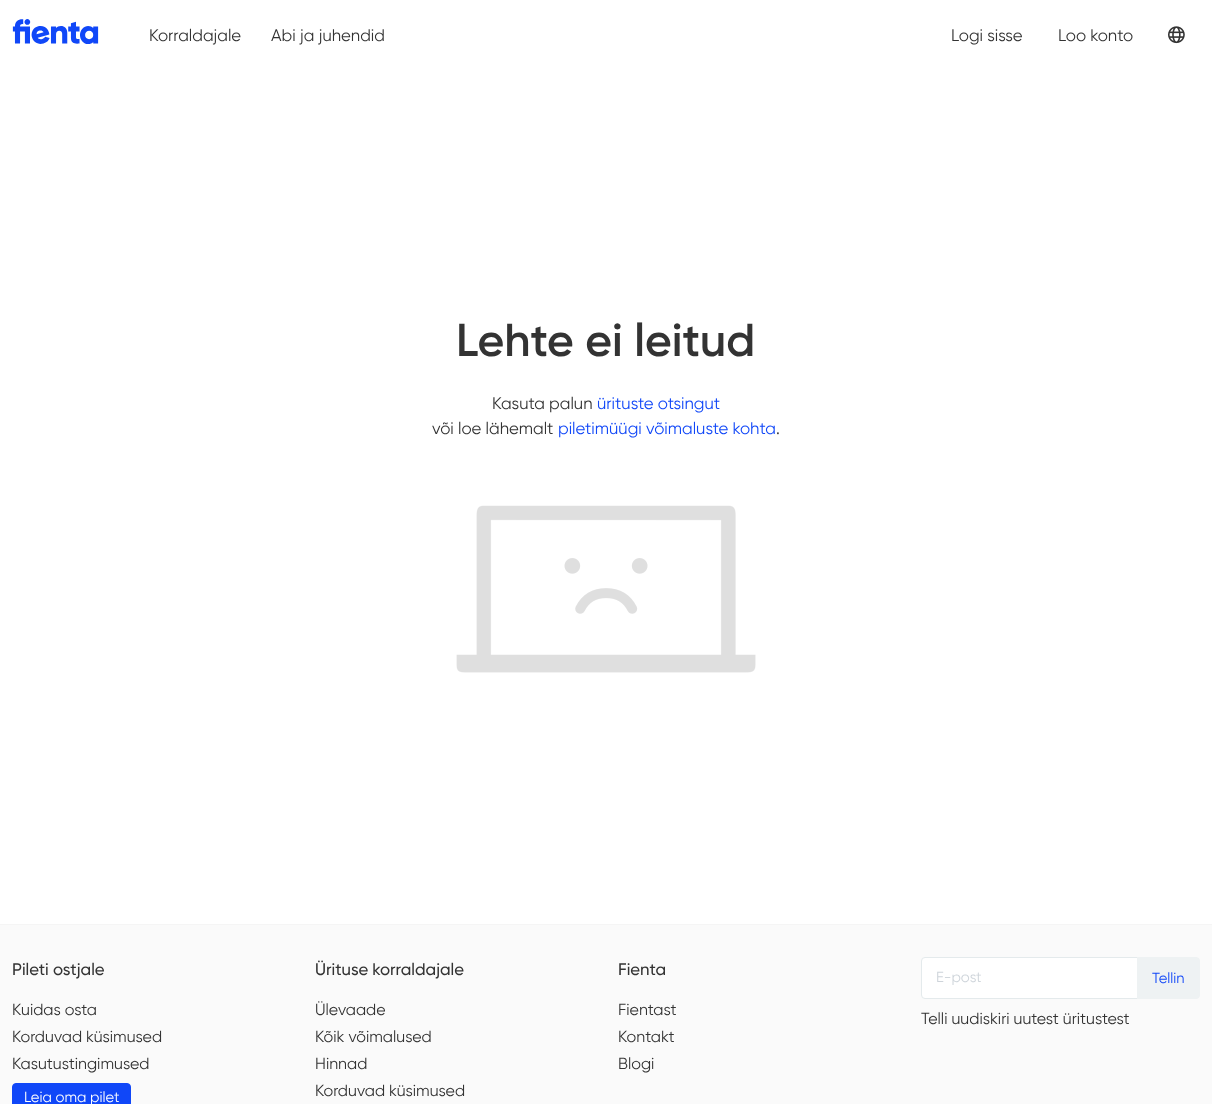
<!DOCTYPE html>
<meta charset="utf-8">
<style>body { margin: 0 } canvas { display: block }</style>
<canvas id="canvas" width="1212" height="1104"></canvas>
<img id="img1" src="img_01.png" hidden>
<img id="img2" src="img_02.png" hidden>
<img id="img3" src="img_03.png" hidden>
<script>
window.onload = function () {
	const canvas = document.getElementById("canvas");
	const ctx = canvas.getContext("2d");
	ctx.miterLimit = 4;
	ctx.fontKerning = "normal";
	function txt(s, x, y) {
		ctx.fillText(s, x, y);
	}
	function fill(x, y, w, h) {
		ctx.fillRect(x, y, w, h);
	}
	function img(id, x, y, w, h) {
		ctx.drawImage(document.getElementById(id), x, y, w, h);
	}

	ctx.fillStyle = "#FFFFFF";
	fill(0, 0, 1212, 1104);
	img("img1", 12, 19, 87, 25);
	img("img2", 1168, 26, 17, 18);
	img("img3", 456, 505, 300, 168);
	ctx.fillStyle = "#FAFAFA";
	fill(0, 925, 1212, 179);
	ctx.fillStyle = "#F5F5F5";
	fill(0, 924, 1212, 1);
	ctx.fillStyle = "#1047F8";
	ctx.beginPath();
	ctx.roundRect(12.5, 1083.5, 118, 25, 3.5);
	ctx.fill();
	ctx.strokeStyle = "#1047F8";
	ctx.stroke();
	ctx.fillStyle = "#FFFFFF";
	ctx.beginPath();
	ctx.roundRect(921.5, 957.5, 216, 41, [3.5, 0, 0, 3.5]);
	ctx.fill();
	ctx.strokeStyle = "#E4EAEC";
	ctx.stroke();
	ctx.fillStyle = "#EEF2F3";
	ctx.beginPath();
	ctx.roundRect(1137.5, 957.5, 62, 41, [0, 3.5, 3.5, 0]);
	ctx.fill();
	ctx.strokeStyle = "#EEF2F3";
	ctx.stroke();
	ctx.font = "16.75px Gilroy";
	ctx.fillStyle = "#333333";
	txt("Korraldajale", 149, 41);
	txt("Abi ja juhendid", 271, 41);
	txt("Logi sisse", 951, 41);
	txt("Loo konto", 1058, 41);
	ctx.font = "600 46px Gilroy";
	txt("Lehte ei leitud", 456, 356);
	ctx.font = "16.75px Gilroy";
	txt("Kasuta palun", 492, 409);
	ctx.fillStyle = "#1047F8";
	txt("ürituste otsingut", 597, 409);
	ctx.fillStyle = "#333333";
	txt("või loe lähemalt", 432, 434);
	ctx.fillStyle = "#1047F8";
	txt("piletimüügi võimaluste kohta", 558, 434);
	ctx.fillStyle = "#333333";
	txt(".", 776, 434);
	ctx.font = "500 16.75px Gilroy";
	txt("Pileti ostjale", 12, 975);
	ctx.font = "16px Gilroy";
	txt("Kuidas osta", 12, 1015);
	txt("Korduvad küsimused", 12, 1042);
	txt("Kasutustingimused", 12, 1069);
	ctx.font = "14.75px Gilroy";
	ctx.fillStyle = "#FFFFFF";
	txt("Leia oma pilet", 24, 1102);
	ctx.font = "500 16.75px Gilroy";
	ctx.fillStyle = "#333333";
	txt("Ürituse korraldajale", 315, 975);
	ctx.font = "16px Gilroy";
	txt("Ülevaade", 315, 1015);
	txt("Kõik võimalused", 315, 1042);
	txt("Hinnad", 315, 1069);
	txt("Korduvad küsimused", 315, 1096);
	ctx.font = "500 16.75px Gilroy";
	txt("Fienta", 618, 975);
	ctx.font = "16px Gilroy";
	txt("Fientast", 618, 1015);
	txt("Kontakt", 618, 1042);
	txt("Blogi", 618, 1069);
	ctx.font = "14.75px Gilroy";
	ctx.fillStyle = "#CED4DA";
	txt("E-post", 936, 982);
	ctx.fillStyle = "#1047F8";
	txt("Tellin", 1152, 983);
	ctx.font = "16px Gilroy";
	ctx.fillStyle = "#333333";
	txt("Telli uudiskiri uutest üritustest", 921, 1024);
};
</script>
